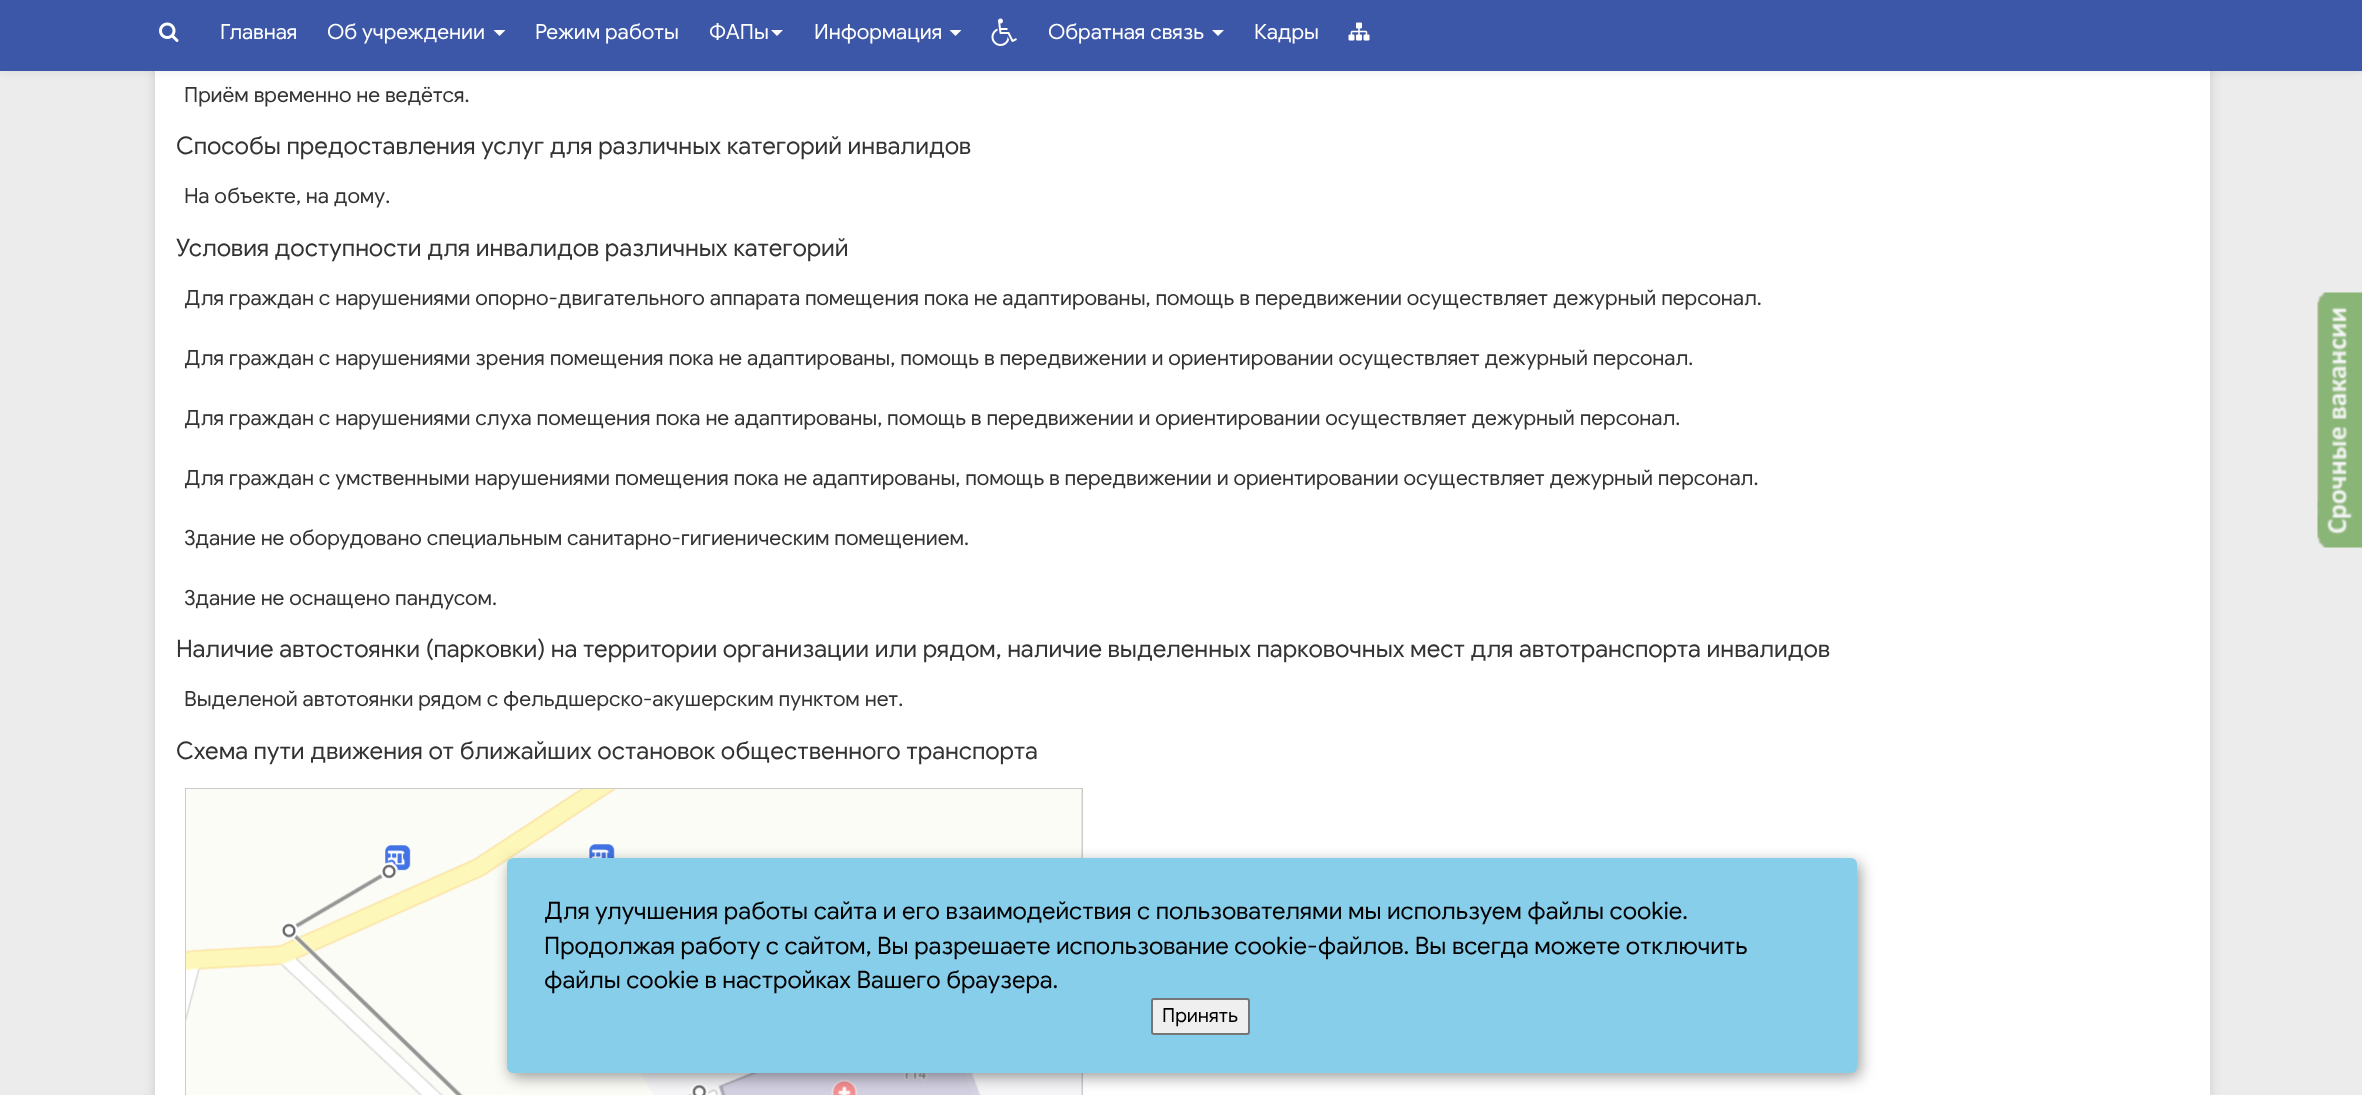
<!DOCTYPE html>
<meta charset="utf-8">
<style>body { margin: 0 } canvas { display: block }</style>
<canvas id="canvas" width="2362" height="1095"></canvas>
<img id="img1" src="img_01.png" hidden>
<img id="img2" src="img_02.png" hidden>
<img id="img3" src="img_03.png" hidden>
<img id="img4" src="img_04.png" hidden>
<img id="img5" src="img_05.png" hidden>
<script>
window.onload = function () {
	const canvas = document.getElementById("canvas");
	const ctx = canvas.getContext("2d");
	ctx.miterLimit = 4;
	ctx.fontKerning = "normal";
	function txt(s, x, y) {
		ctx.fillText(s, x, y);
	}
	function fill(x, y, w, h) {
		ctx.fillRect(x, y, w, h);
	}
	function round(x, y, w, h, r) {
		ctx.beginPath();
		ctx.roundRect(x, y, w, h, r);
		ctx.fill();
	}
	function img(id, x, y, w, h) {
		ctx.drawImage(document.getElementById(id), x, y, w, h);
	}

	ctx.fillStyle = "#ECECEC";
	fill(0, 0, 2362, 1095);
	ctx.fillStyle = "#CCCCCC";
	ctx.filter = "blur(6px)";
	ctx.beginPath();
	ctx.rect(155, -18, 2055, 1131);
	ctx.fill();
	ctx.filter = "none";
	ctx.fillStyle = "#FFFFFF";
	fill(155, 71, 2055, 1024);
	ctx.fillStyle = "rgba(0, 0, 0, 0.07)";
	ctx.filter = "blur(4px)";
	ctx.beginPath();
	ctx.rect(0, -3, 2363, 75);
	ctx.fill();
	ctx.filter = "none";
	ctx.fillStyle = "#3C57A7";
	fill(0, 0, 2362, 71);
	img("img1", 159, 22, 20, 20);
	ctx.fillStyle = "#FFFFFF";
	ctx.beginPath();
	ctx.moveTo(493.5, 30);
	ctx.lineTo(505.5, 30);
	ctx.lineTo(499.5, 36);
	ctx.closePath();
	ctx.fill();
	ctx.beginPath();
	ctx.moveTo(771, 30);
	ctx.lineTo(783, 30);
	ctx.lineTo(777, 36);
	ctx.closePath();
	ctx.fill();
	ctx.beginPath();
	ctx.moveTo(949.5, 30);
	ctx.lineTo(961.5, 30);
	ctx.lineTo(955.5, 36);
	ctx.closePath();
	ctx.fill();
	img("img2", 991, 18, 26, 28);
	ctx.beginPath();
	ctx.moveTo(1212, 30);
	ctx.lineTo(1224, 30);
	ctx.lineTo(1218, 36);
	ctx.closePath();
	ctx.fill();
	img("img3", 1348, 22, 22, 19);
	ctx.strokeStyle = "#CCCCCC";
	ctx.lineWidth = 2;
	ctx.strokeRect(186, 789, 896, 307);
	img("img4", 186, 789, 896, 306);
	img("img5", 2317, 292, 45, 256);
	ctx.fillStyle = "rgba(0, 0, 0, 0.4)";
	ctx.filter = "blur(7.5px)";
	ctx.beginPath();
	ctx.roundRect(510, 863, 1350, 214, 6);
	ctx.fill();
	ctx.filter = "none";
	ctx.fillStyle = "#87CEEB";
	round(507, 858, 1350, 215, 6);
	ctx.fillStyle = "#EFEFEF";
	ctx.beginPath();
	ctx.roundRect(1152, 999, 97, 35, 2);
	ctx.fill();
	ctx.strokeStyle = "#767676";
	ctx.stroke();
	ctx.font = "21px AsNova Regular";
	ctx.fillStyle = "#FFFFFF";
	txt("Главная", 220, 39);
	txt("Об учреждении", 327, 39);
	txt("Режим работы", 535, 39);
	txt("ФАПы", 709, 39);
	txt("Информация", 814, 39);
	txt("Обратная связь", 1048, 39);
	txt("Кадры", 1254, 39);
	ctx.fillStyle = "#333333";
	txt("Приём временно не ведётся.", 184, 102);
	ctx.font = "24.15px AsNova Regular";
	txt("Способы предоставления услуг для различных категорий инвалидов", 176, 154);
	ctx.font = "21px AsNova Regular";
	txt("На объекте, на дому.", 184, 203);
	ctx.font = "24.15px AsNova Regular";
	txt("Условия доступности для инвалидов различных категорий", 176, 256);
	ctx.font = "21px AsNova Regular";
	txt("Для граждан с нарушениями опорно-двигательного аппарата помещения пока не адаптированы, помощь в передвижении осуществляет дежурный персонал.", 184, 305);
	txt("Для граждан с нарушениями зрения помещения пока не адаптированы, помощь в передвижении и ориентировании осуществляет дежурный персонал.", 184, 365);
	txt("Для граждан с нарушениями слуха помещения пока не адаптированы, помощь в передвижении и ориентировании осуществляет дежурный персонал.", 184, 425);
	txt("Для граждан с умственными нарушениями помещения пока не адаптированы, помощь в передвижении и ориентировании осуществляет дежурный персонал.", 184, 485);
	txt("Здание не оборудовано специальным санитарно-гигиеническим помещением.", 184, 545);
	txt("Здание не оснащено пандусом.", 184, 605);
	ctx.font = "24.15px AsNova Regular";
	txt("Наличие автостоянки (парковки) на территории организации или рядом, наличие выделенных парковочных мест для автотранспорта инвалидов", 176, 657);
	ctx.font = "21px AsNova Regular";
	txt("Выделеной автотоянки рядом с фельдшерско-акушерским пунктом нет.", 184, 706);
	ctx.font = "24.15px AsNova Regular";
	txt("Схема пути движения от ближайших остановок общественного транспорта", 176, 759);
	ctx.font = "24px AsNova Regular";
	ctx.fillStyle = "#000000";
	txt("Для улучшения работы сайта и его взаимодействия с пользователями мы используем файлы cookie.", 544, 919);
	txt("Продолжая работу с сайтом, Вы разрешаете использование cookie-файлов. Вы всегда можете отключить", 544, 954);
	txt("файлы cookie в настройках Вашего браузера.", 544, 988);
	ctx.font = "19.5px AsNova Regular";
	txt("Принять", 1162, 1022);
};
</script>
